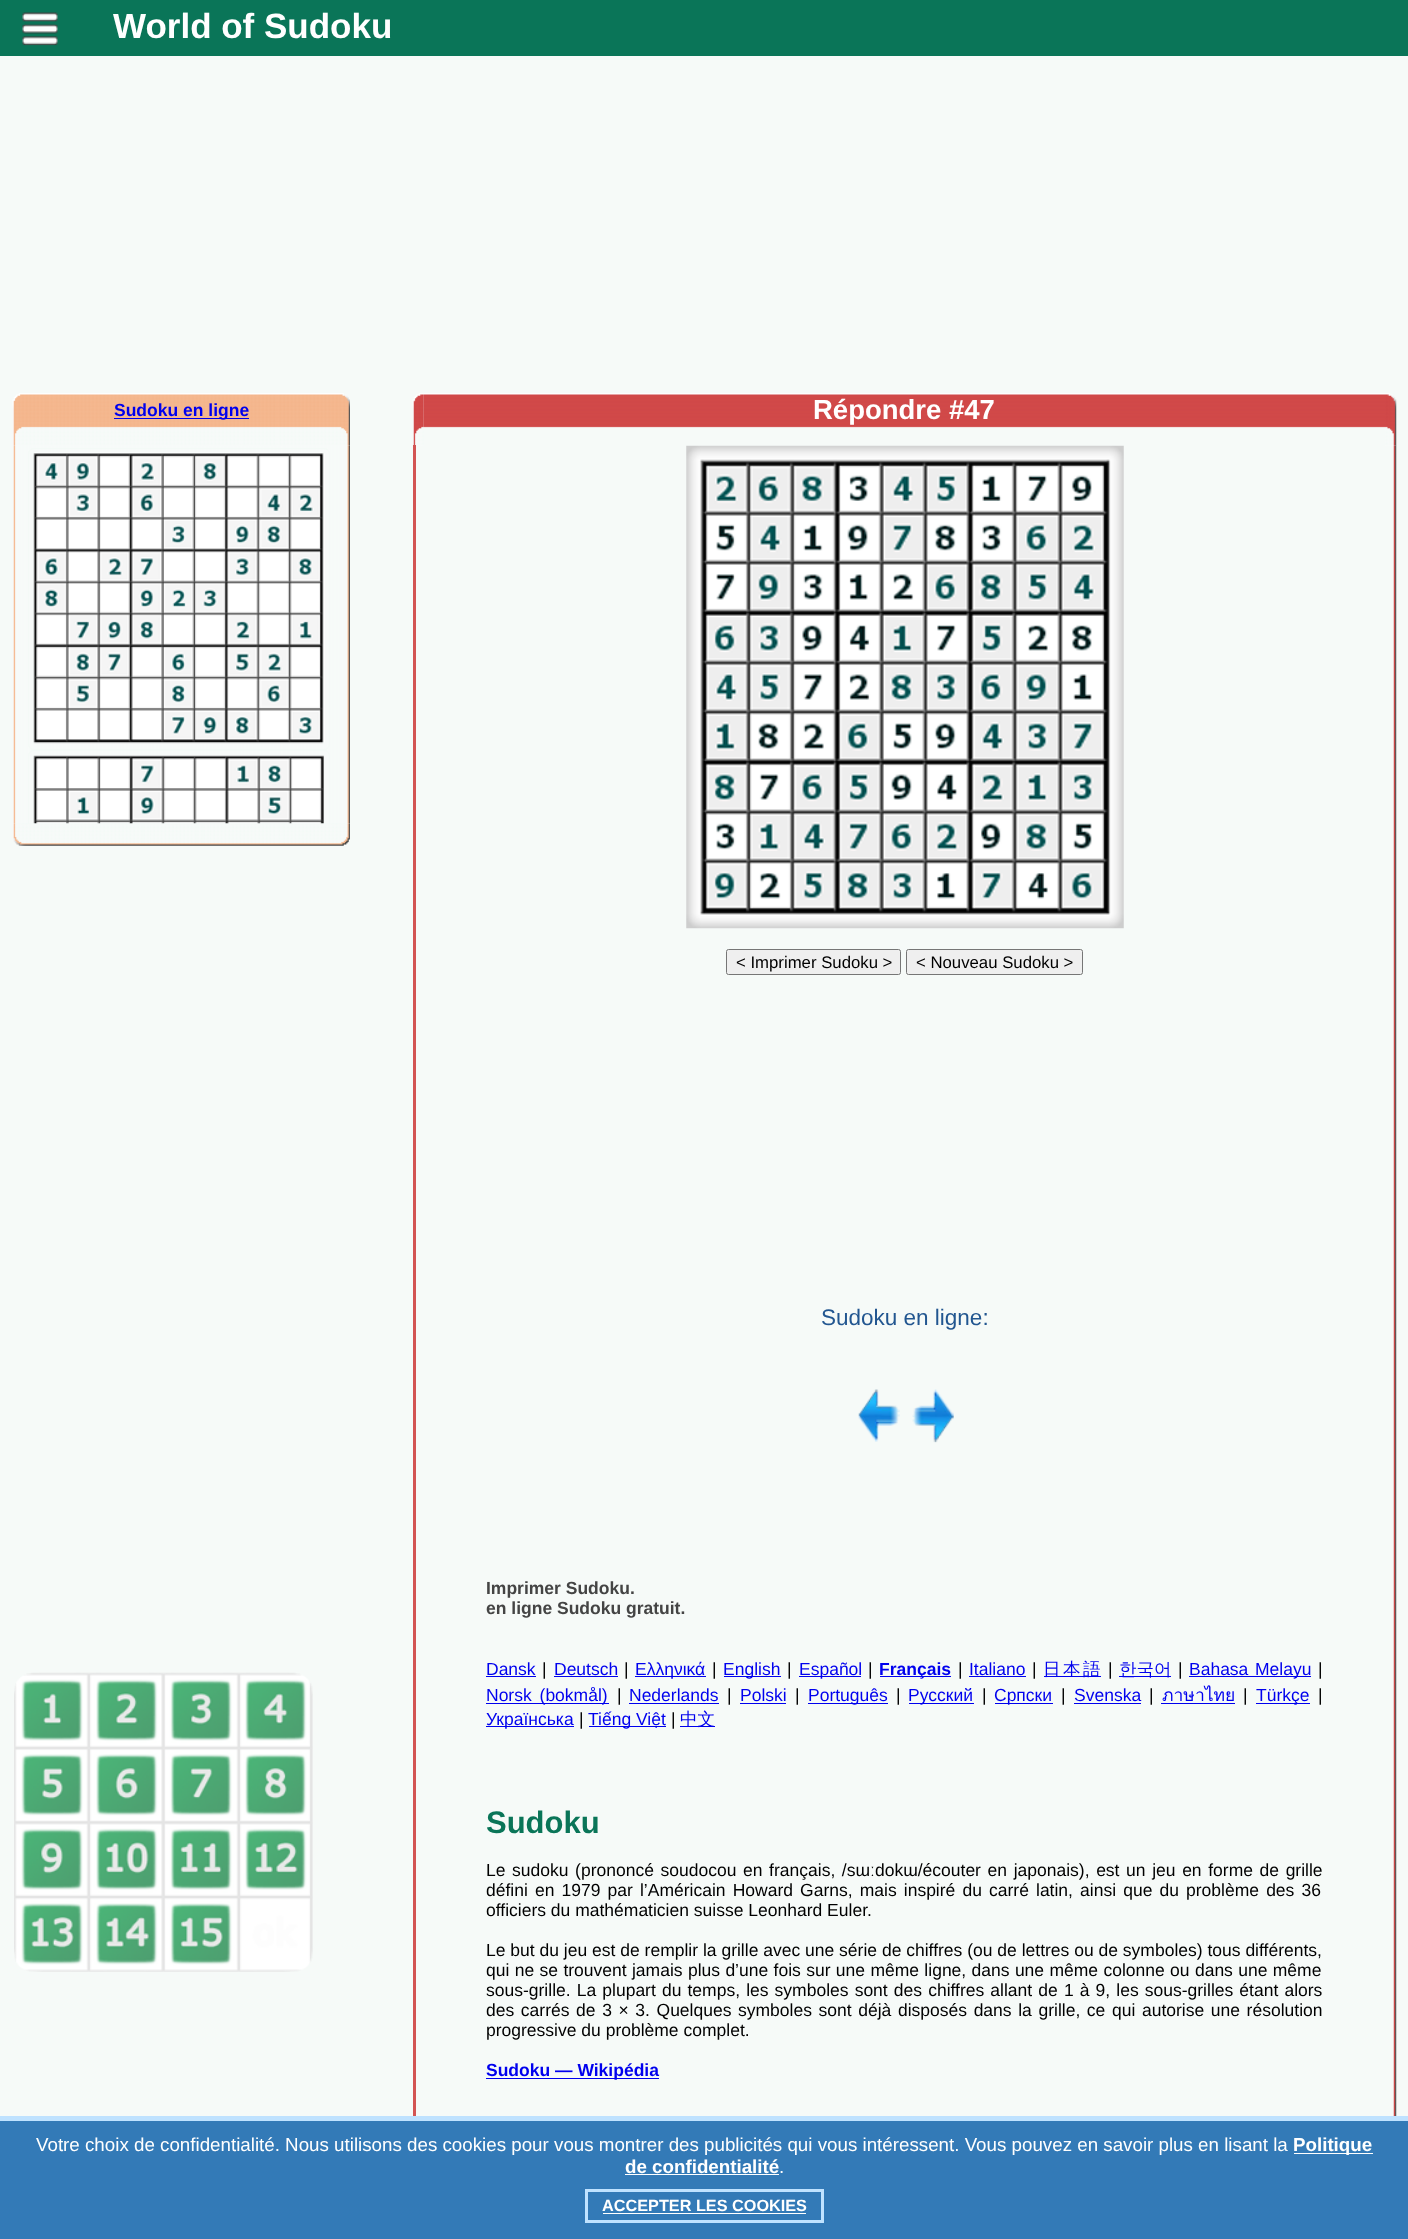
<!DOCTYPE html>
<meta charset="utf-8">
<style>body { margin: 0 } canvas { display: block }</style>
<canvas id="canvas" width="1408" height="2239"></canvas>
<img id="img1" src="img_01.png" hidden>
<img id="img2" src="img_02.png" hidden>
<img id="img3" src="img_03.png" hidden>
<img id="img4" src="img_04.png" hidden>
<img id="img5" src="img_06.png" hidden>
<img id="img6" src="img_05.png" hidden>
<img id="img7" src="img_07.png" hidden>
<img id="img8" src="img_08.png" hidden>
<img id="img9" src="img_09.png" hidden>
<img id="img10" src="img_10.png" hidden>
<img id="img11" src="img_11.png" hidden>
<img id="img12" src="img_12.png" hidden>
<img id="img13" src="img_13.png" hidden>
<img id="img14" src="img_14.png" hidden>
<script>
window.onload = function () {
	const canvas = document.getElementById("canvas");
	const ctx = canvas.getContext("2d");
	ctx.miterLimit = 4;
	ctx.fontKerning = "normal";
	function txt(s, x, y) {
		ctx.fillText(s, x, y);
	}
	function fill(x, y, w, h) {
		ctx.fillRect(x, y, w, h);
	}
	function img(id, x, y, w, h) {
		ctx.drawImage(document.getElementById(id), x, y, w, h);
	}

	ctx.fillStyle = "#F6FAF8";
	fill(0, 0, 1408, 2239);
	ctx.fillStyle = "#0A7558";
	fill(0, 0, 1408, 56);
	img("img1", 22, 12, 36, 34);
	img("img2", 12, 393, 338, 53);
	ctx.fillStyle = "#0000EE";
	fill(114, 418, 135, 1);
	img("img3", 13, 445, 337, 379);
	ctx.beginPath();
	ctx.roundRect(28.5, 448.5, 301, 301, 5.5);
	ctx.strokeStyle = "#F4FAF7";
	ctx.stroke();
	img("img4", 33, 452, 292, 292);
	img("img5", 13, 823, 337, 23);
	ctx.save();
	ctx.beginPath();
	ctx.rect(13, 446, 332, 378);
	ctx.clip();
	ctx.beginPath();
	ctx.roundRect(28.5, 750.5, 301, 302, 5.5);
	ctx.stroke();
	ctx.restore();
	img("img6", 33, 755, 291, 69);
	img("img7", 14, 1672, 299, 300);
	img("img8", 412, 393, 12, 53);
	img("img9", 423, 393, 962, 35);
	img("img10", 1385, 393, 12, 53);
	ctx.fillStyle = "#D35453";
	fill(413, 445, 3, 1671);
	img("img11", 686, 445, 438, 484);
	ctx.fillStyle = "#EFEFEF";
	ctx.beginPath();
	ctx.roundRect(726.5, 949.5, 174, 25, 2);
	ctx.fill();
	ctx.strokeStyle = "#767676";
	ctx.stroke();
	ctx.beginPath();
	ctx.roundRect(906.5, 949.5, 176, 25, 2);
	ctx.fill();
	ctx.stroke();
	img("img12", 858, 1389, 42, 53);
	img("img13", 912, 1389, 42, 54);
	ctx.fillStyle = "#0000EE";
	fill(486, 1676, 50, 1);
	fill(554, 1676, 64, 1);
	fill(635, 1676, 71, 1);
	fill(724, 1676, 57, 1);
	fill(799, 1676, 62, 1);
	fill(880, 1676, 71, 1);
	fill(969, 1676, 57, 1);
	fill(1044, 1676, 57, 1);
	fill(1119, 1676, 52, 1);
	fill(1189, 1676, 122, 1);
	fill(486, 1703, 123, 1);
	fill(629, 1703, 90, 1);
	fill(740, 1703, 46, 1);
	fill(808, 1703, 80, 1);
	fill(909, 1703, 65, 1);
	fill(995, 1703, 58, 1);
	fill(1074, 1703, 67, 1);
	fill(1161, 1703, 74, 1);
	fill(1256, 1703, 54, 1);
	fill(486, 1726, 88, 1);
	fill(589, 1726, 77, 1);
	fill(680, 1726, 35, 1);
	fill(486, 2078, 173, 1);
	img("img14", 1393, 445, 4, 1671);
	ctx.fillStyle = "#337AB7";
	fill(0, 2121, 1408, 118);
	ctx.fillStyle = "#BFE2FF";
	fill(0, 2116, 1408, 5);
	ctx.fillStyle = "#FFFFFF";
	fill(1294, 2153, 79, 1);
	fill(625, 2174, 154, 1);
	ctx.strokeStyle = "#BFE2FF";
	ctx.lineWidth = 3;
	ctx.strokeRect(586.5, 2190.5, 236, 31);
	fill(603, 2213, 203, 1);
	ctx.font = "bold 35px Liberation Sans";
	txt("World of Sudoku", 113, 38);
	ctx.font = "bold 17.5px Liberation Sans";
	ctx.fillStyle = "#0000EE";
	txt("Sudoku en ligne", 114, 416);
	ctx.font = "bold 27.5px Liberation Sans";
	ctx.fillStyle = "#FFFFFF";
	txt("Répondre #47", 813, 419);
	ctx.font = "16.75px Liberation Sans";
	ctx.fillStyle = "#000000";
	txt("< Imprimer Sudoku >", 736, 968);
	txt("< Nouveau Sudoku >", 916, 968);
	ctx.font = "22.5px Liberation Sans";
	ctx.fillStyle = "#225690";
	txt("Sudoku en ligne:", 821, 1325);
	ctx.font = "bold 17.5px Liberation Sans";
	ctx.fillStyle = "#444444";
	txt("Imprimer Sudoku.", 486, 1594);
	txt("en ligne Sudoku gratuit.", 486, 1614);
	ctx.font = "17.5px Liberation Sans";
	ctx.fillStyle = "#0000EE";
	txt("Dansk", 486, 1675);
	ctx.fillStyle = "#000000";
	txt("|", 542, 1675);
	ctx.fillStyle = "#0000EE";
	txt("Deutsch", 554, 1675);
	ctx.fillStyle = "#000000";
	txt("|", 624, 1675);
	ctx.fillStyle = "#0000EE";
	txt("Ελληνικά", 635, 1675);
	ctx.fillStyle = "#000000";
	txt("|", 712, 1675);
	ctx.fillStyle = "#0000EE";
	txt("English", 723, 1675);
	ctx.fillStyle = "#000000";
	txt("|", 787, 1675);
	ctx.fillStyle = "#0000EE";
	txt("Español", 799, 1675);
	ctx.fillStyle = "#000000";
	txt("|", 868, 1675);
	ctx.font = "bold 17.5px Liberation Sans";
	ctx.fillStyle = "#0000EE";
	txt("Français", 879, 1675);
	ctx.font = "17.5px Liberation Sans";
	ctx.fillStyle = "#000000";
	txt("|", 958, 1675);
	ctx.fillStyle = "#0000EE";
	txt("Italiano", 969, 1675);
	ctx.fillStyle = "#000000";
	txt("|", 1032, 1675);
	ctx.letterSpacing = "2.5px";
	ctx.font = "500 17.5px WenQuanYi Zen Hei";
	ctx.fillStyle = "#0000EE";
	txt("日本語", 1043, 1675);
	ctx.letterSpacing = "0px";
	ctx.font = "17.5px Liberation Sans";
	ctx.fillStyle = "#000000";
	txt("|", 1108, 1675);
	ctx.font = "500 17.5px WenQuanYi Zen Hei";
	ctx.fillStyle = "#0000EE";
	txt("한국어", 1119, 1675);
	ctx.font = "17.5px Liberation Sans";
	ctx.fillStyle = "#000000";
	txt("|", 1178, 1675);
	ctx.wordSpacing = "1.75px";
	ctx.fillStyle = "#0000EE";
	txt("Bahasa Melayu", 1189, 1675);
	ctx.wordSpacing = "0px";
	ctx.fillStyle = "#000000";
	txt("|", 1318, 1675);
	ctx.wordSpacing = "3px";
	ctx.fillStyle = "#0000EE";
	txt("Norsk (bokmål)", 486, 1701);
	ctx.wordSpacing = "0px";
	ctx.fillStyle = "#000000";
	txt("|", 617, 1701);
	ctx.fillStyle = "#0000EE";
	txt("Nederlands", 629, 1701);
	ctx.fillStyle = "#000000";
	txt("|", 727, 1701);
	ctx.fillStyle = "#0000EE";
	txt("Polski", 740, 1701);
	ctx.fillStyle = "#000000";
	txt("|", 795, 1701);
	ctx.fillStyle = "#0000EE";
	txt("Português", 808, 1701);
	ctx.fillStyle = "#000000";
	txt("|", 896, 1701);
	ctx.fillStyle = "#0000EE";
	txt("Русский", 908, 1701);
	ctx.fillStyle = "#000000";
	txt("|", 982, 1701);
	ctx.fillStyle = "#0000EE";
	txt("Српски", 994, 1701);
	ctx.fillStyle = "#000000";
	txt("|", 1061, 1701);
	ctx.fillStyle = "#0000EE";
	txt("Svenska", 1074, 1701);
	ctx.fillStyle = "#000000";
	txt("|", 1149, 1701);
	ctx.font = "17.5px Loma";
	ctx.fillStyle = "#0000EE";
	txt("ภาษาไทย", 1162, 1701);
	ctx.font = "17.5px Liberation Sans";
	ctx.fillStyle = "#000000";
	txt("|", 1243, 1701);
	ctx.fillStyle = "#0000EE";
	txt("Türkçe", 1256, 1701);
	ctx.fillStyle = "#000000";
	txt("|", 1318, 1701);
	ctx.fillStyle = "#0000EE";
	txt("Українська", 486, 1725);
	ctx.fillStyle = "#000000";
	txt("|", 579, 1725);
	ctx.fillStyle = "#0000EE";
	txt("Tiếng Việt", 588, 1725);
	ctx.fillStyle = "#000000";
	txt("|", 671, 1725);
	ctx.font = "500 17.5px WenQuanYi Zen Hei";
	ctx.fillStyle = "#0000EE";
	txt("中文", 680, 1725);
	ctx.font = "bold 31px Liberation Sans";
	ctx.fillStyle = "#0A7558";
	txt("Sudoku", 486, 1833);
	ctx.wordSpacing = "1.75px";
	ctx.font = "17.5px Liberation Sans";
	ctx.fillStyle = "#000000";
	txt("Le sudoku (prononcé soudocou en français, /sɯːdokɯ/écouter en japonais), est un jeu en forme de grille", 486, 1876);
	ctx.wordSpacing = "2.25px";
	txt("défini en 1979 par l’Américain Howard Garns, mais inspiré du carré latin, ainsi que du problème des 36", 486, 1896);
	ctx.wordSpacing = "0px";
	txt("officiers du mathématicien suisse Leonhard Euler.", 486, 1916);
	txt("Le but du jeu est de remplir la grille avec une série de chiffres (ou de lettres ou de symboles) tous différents,", 486, 1956);
	ctx.wordSpacing = "0.5px";
	txt("qui ne se trouvent jamais plus d’une fois sur une même ligne, dans une même colonne ou dans une même", 486, 1976);
	ctx.wordSpacing = "1.25px";
	txt("sous-grille. La plupart du temps, les symboles sont des chiffres allant de 1 à 9, les sous-grilles étant alors", 486, 1996);
	ctx.wordSpacing = "1.75px";
	txt("des carrés de 3 × 3. Quelques symboles sont déjà disposés dans la grille, ce qui autorise une résolution", 486, 2016);
	ctx.wordSpacing = "0px";
	txt("progressive du problème complet.", 486, 2036);
	ctx.font = "bold 17.5px Liberation Sans";
	ctx.fillStyle = "#0000EE";
	txt("Sudoku — Wikipédia", 486, 2076);
	ctx.font = "18.75px Liberation Sans";
	ctx.fillStyle = "#FFFFFF";
	txt("Votre choix de confidentialité. Nous utilisons des cookies pour vous montrer des publicités qui vous intéressent. Vous pouvez en savoir plus en lisant la", 36, 2151);
	ctx.font = "bold 18.75px Liberation Sans";
	txt("Politique", 1293, 2151);
	txt("de confidentialité", 625, 2173);
	ctx.font = "18.75px Liberation Sans";
	txt(".", 779, 2173);
	ctx.font = "bold 16.25px Liberation Sans";
	txt("ACCEPTER LES COOKIES", 602, 2211);
};
</script>
